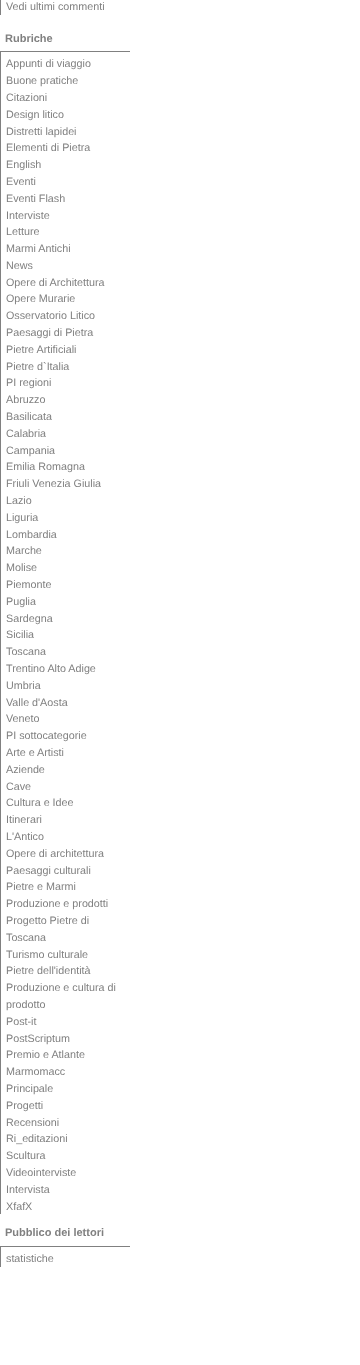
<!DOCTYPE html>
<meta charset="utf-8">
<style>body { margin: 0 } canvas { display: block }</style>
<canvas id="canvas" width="360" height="1365"></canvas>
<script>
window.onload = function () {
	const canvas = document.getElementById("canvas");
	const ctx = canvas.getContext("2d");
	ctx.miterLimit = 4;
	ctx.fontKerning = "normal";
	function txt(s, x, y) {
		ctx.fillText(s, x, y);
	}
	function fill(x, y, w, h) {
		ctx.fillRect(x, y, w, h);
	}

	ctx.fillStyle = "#FFFFFF";
	fill(0, 0, 360, 1365);
	ctx.fillStyle = "#808080";
	fill(0, 0, 1, 15);
	fill(0, 51, 130, 1);
	fill(0, 51, 1, 1163);
	fill(0, 1246, 130, 1);
	fill(0, 1246, 1, 21);
	ctx.font = "10.75px Liberation Sans";
	txt("Vedi ultimi commenti", 6, 10);
	ctx.font = "bold 11px Liberation Sans";
	txt("Rubriche", 5, 42);
	ctx.font = "10.75px Liberation Sans";
	txt("Appunti di viaggio", 6, 67);
	txt("Buone pratiche", 6, 84);
	txt("Citazioni", 6, 101);
	txt("Design litico", 6, 118);
	txt("Distretti lapidei", 6, 135);
	txt("Elementi di Pietra", 6, 151);
	txt("English", 6, 168);
	txt("Eventi", 6, 185);
	txt("Eventi Flash", 6, 202);
	txt("Interviste", 6, 219);
	txt("Letture", 6, 235);
	txt("Marmi Antichi", 6, 252);
	txt("News", 6, 269);
	txt("Opere di Architettura", 6, 286);
	txt("Opere Murarie", 6, 302);
	txt("Osservatorio Litico", 6, 319);
	txt("Paesaggi di Pietra", 6, 336);
	txt("Pietre Artificiali", 6, 353);
	txt("Pietre d`Italia", 6, 370);
	txt("PI regioni", 6, 386);
	txt("Abruzzo", 6, 403);
	txt("Basilicata", 6, 420);
	txt("Calabria", 6, 437);
	txt("Campania", 6, 454);
	txt("Emilia Romagna", 6, 470);
	txt("Friuli Venezia Giulia", 6, 487);
	txt("Lazio", 6, 504);
	txt("Liguria", 6, 521);
	txt("Lombardia", 6, 538);
	txt("Marche", 6, 554);
	txt("Molise", 6, 571);
	txt("Piemonte", 6, 588);
	txt("Puglia", 6, 605);
	txt("Sardegna", 6, 622);
	txt("Sicilia", 6, 638);
	txt("Toscana", 6, 655);
	txt("Trentino Alto Adige", 6, 672);
	txt("Umbria", 6, 689);
	txt("Valle d'Aosta", 6, 706);
	txt("Veneto", 6, 722);
	txt("PI sottocategorie", 6, 739);
	txt("Arte e Artisti", 6, 756);
	txt("Aziende", 6, 773);
	txt("Cave", 6, 790);
	txt("Cultura e Idee", 6, 806);
	txt("Itinerari", 6, 823);
	txt("L'Antico", 6, 840);
	txt("Opere di architettura", 6, 857);
	txt("Paesaggi culturali", 6, 874);
	txt("Pietre e Marmi", 6, 890);
	txt("Produzione e prodotti", 6, 907);
	txt("Progetto Pietre di", 6, 924);
	txt("Toscana", 6, 941);
	txt("Turismo culturale", 6, 958);
	txt("Pietre dell'identità", 6, 974);
	txt("Produzione e cultura di", 6, 991);
	txt("prodotto", 6, 1008);
	txt("Post-it", 6, 1025);
	txt("PostScriptum", 6, 1042);
	txt("Premio e Atlante", 6, 1058);
	txt("Marmomacc", 6, 1075);
	txt("Principale", 6, 1092);
	txt("Progetti", 6, 1109);
	txt("Recensioni", 6, 1126);
	txt("Ri_editazioni", 6, 1142);
	txt("Scultura", 6, 1159);
	txt("Videointerviste", 6, 1176);
	txt("Intervista", 6, 1193);
	txt("XfafX", 6, 1210);
	ctx.font = "bold 11px Liberation Sans";
	txt("Pubblico dei lettori", 5, 1236);
	ctx.font = "10.75px Liberation Sans";
	txt("statistiche", 6, 1262);
};
</script>
